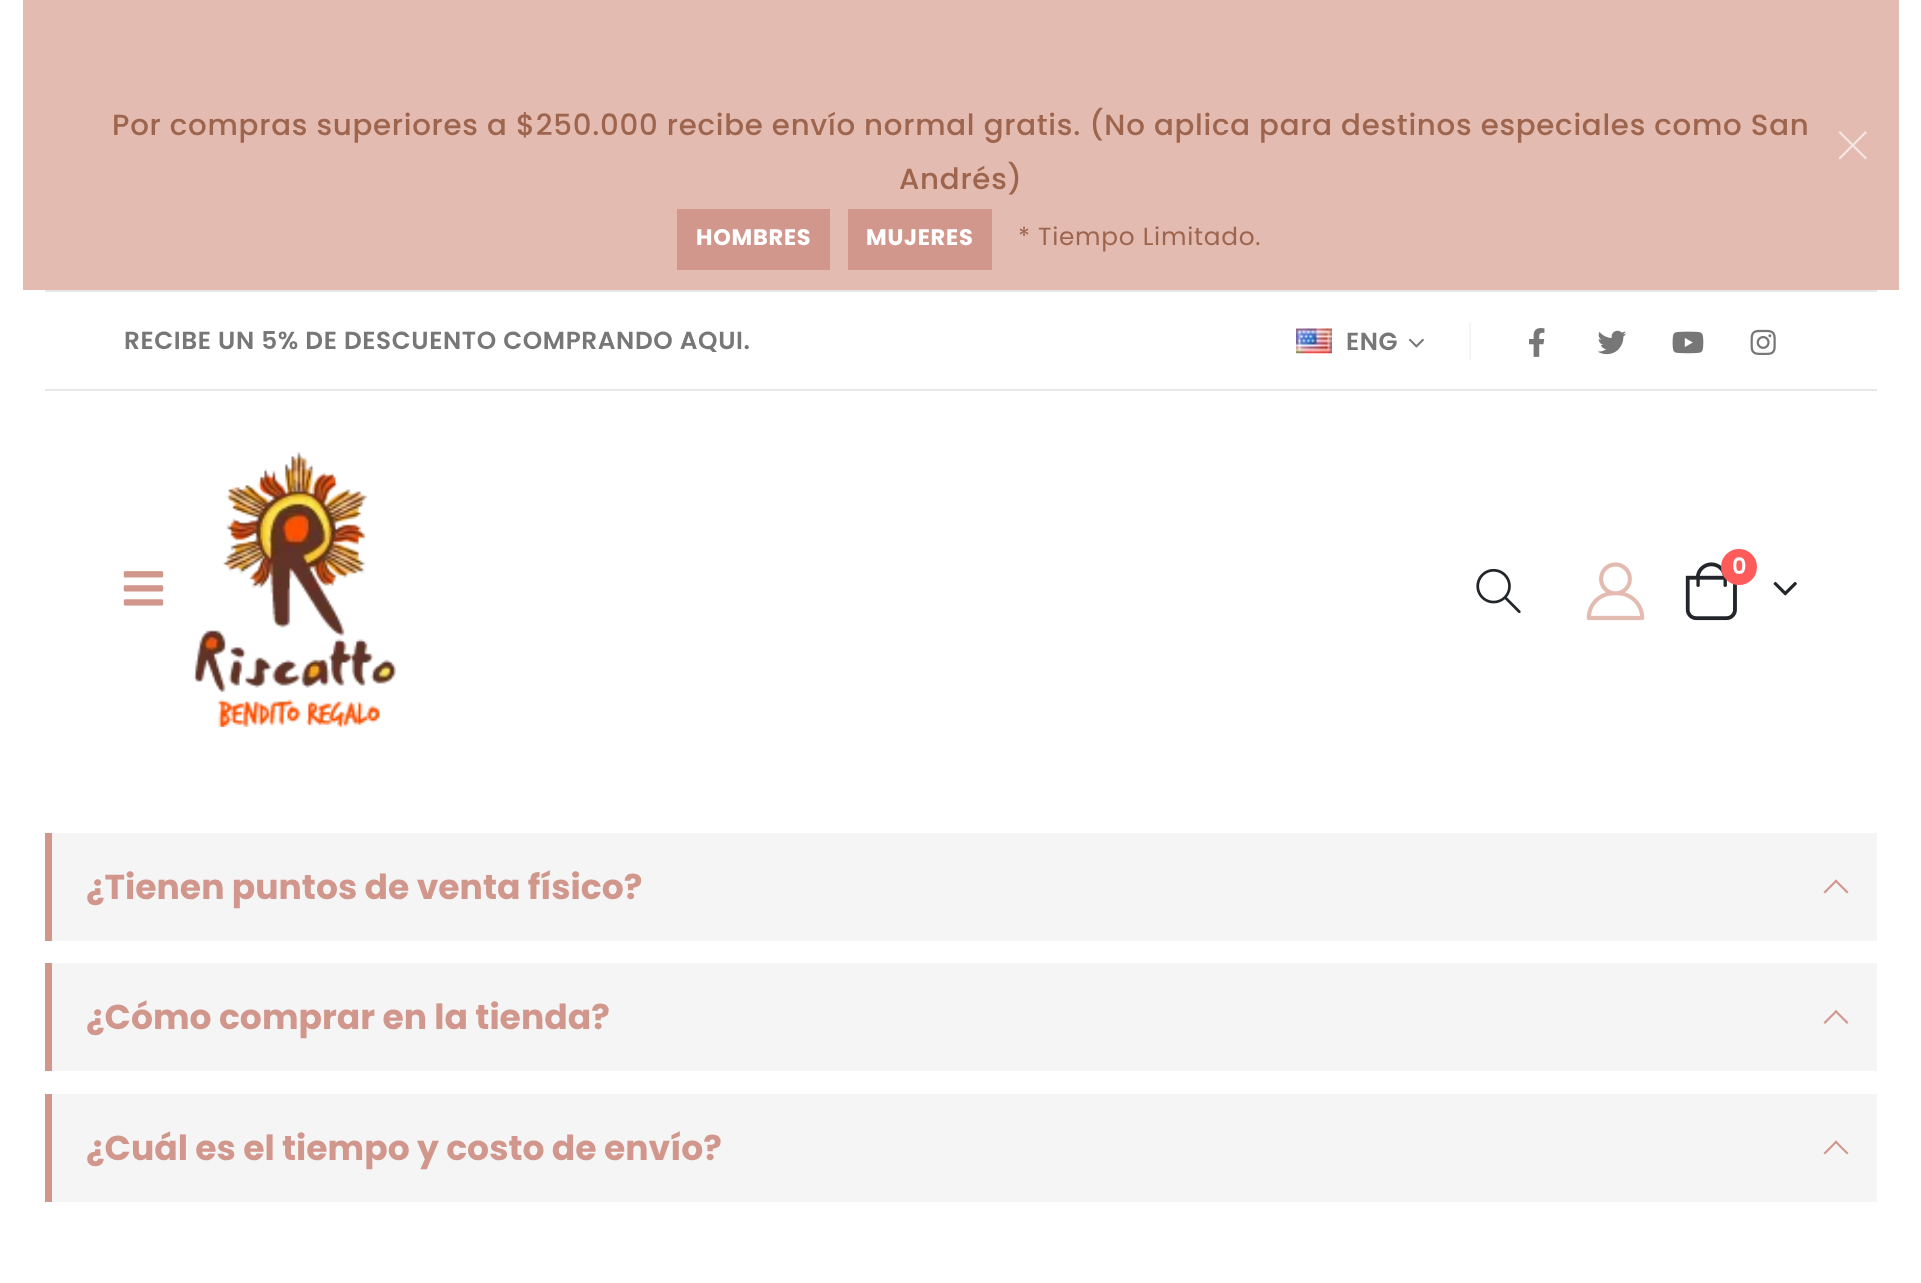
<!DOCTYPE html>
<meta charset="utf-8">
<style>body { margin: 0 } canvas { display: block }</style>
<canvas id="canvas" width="1921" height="1283"></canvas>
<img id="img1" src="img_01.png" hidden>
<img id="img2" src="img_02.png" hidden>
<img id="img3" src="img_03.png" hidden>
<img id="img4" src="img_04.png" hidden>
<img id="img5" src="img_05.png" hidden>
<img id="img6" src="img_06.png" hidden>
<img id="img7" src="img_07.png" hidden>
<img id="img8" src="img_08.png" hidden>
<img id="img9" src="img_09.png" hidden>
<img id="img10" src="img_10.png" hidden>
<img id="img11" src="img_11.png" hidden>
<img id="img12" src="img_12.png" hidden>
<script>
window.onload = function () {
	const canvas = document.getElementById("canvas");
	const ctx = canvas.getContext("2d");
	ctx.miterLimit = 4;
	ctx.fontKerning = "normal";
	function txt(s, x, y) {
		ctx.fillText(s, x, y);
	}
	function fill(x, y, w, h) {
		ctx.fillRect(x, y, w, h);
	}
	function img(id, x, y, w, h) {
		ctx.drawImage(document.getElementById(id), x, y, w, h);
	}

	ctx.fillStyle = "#FFFFFF";
	fill(0, 0, 1921, 1283);
	ctx.fillStyle = "#E3BBB1";
	fill(23, 0, 1876, 290);
	ctx.fillStyle = "#D2978C";
	fill(677, 209, 153, 61);
	fill(848, 209, 144, 61);
	ctx.fillStyle = "#F5E7E4";
	ctx.beginPath();
	ctx.moveTo(1840, 131);
	ctx.lineTo(1867, 158);
	ctx.lineTo(1865.5, 159.5);
	ctx.lineTo(1838.5, 132.5);
	ctx.closePath();
	ctx.fill();
	ctx.beginPath();
	ctx.moveTo(1865.5, 131);
	ctx.lineTo(1867, 132.5);
	ctx.lineTo(1840, 159.5);
	ctx.lineTo(1838.5, 158);
	ctx.closePath();
	ctx.fill();
	ctx.fillStyle = "#E7E7E7";
	fill(45, 290, 1832, 2);
	fill(45, 389, 1832, 2);
	img("img1", 1296, 328, 36, 26);
	img("img2", 1408, 338, 16, 10);
	ctx.fillStyle = "#F5F5F5";
	fill(1469, 322, 2, 38);
	img("img3", 1529, 328, 16, 29);
	img("img4", 1597, 330, 30, 25);
	img("img5", 1672, 331, 32, 23);
	img("img6", 1750, 329, 26, 27);
	img("img7", 123, 571, 41, 35);
	img("img8", 193, 452, 203, 275);
	img("img9", 1476, 568, 45, 46);
	img("img10", 1586, 562, 59, 59);
	img("img11", 1685, 562, 52, 59);
	ctx.fillStyle = "#FF5B5B";
	ctx.beginPath();
	ctx.arc(1739, 567, 18, 0, Math.PI * 2);
	ctx.fill();
	img("img12", 1773, 581, 24, 15);
	ctx.fillStyle = "#F5F5F5";
	fill(52, 833, 1825, 108);
	ctx.fillStyle = "#D2978C";
	fill(45, 833, 7, 108);
	ctx.beginPath();
	ctx.moveTo(1823.5, 892);
	ctx.lineTo(1836, 879.5);
	ctx.lineTo(1837.5, 881);
	ctx.lineTo(1825, 893.5);
	ctx.closePath();
	ctx.fill();
	ctx.beginPath();
	ctx.moveTo(1834.5, 881);
	ctx.lineTo(1836, 879.5);
	ctx.lineTo(1848.5, 892);
	ctx.lineTo(1847, 893.5);
	ctx.closePath();
	ctx.fill();
	ctx.fillStyle = "#F5F5F5";
	fill(52, 963, 1825, 108);
	ctx.fillStyle = "#D2978C";
	fill(45, 963, 7, 108);
	ctx.beginPath();
	ctx.moveTo(1823.5, 1022.5);
	ctx.lineTo(1836, 1010);
	ctx.lineTo(1837.5, 1011.5);
	ctx.lineTo(1825, 1024);
	ctx.closePath();
	ctx.fill();
	ctx.beginPath();
	ctx.moveTo(1834.5, 1011.5);
	ctx.lineTo(1836, 1010);
	ctx.lineTo(1848.5, 1022.5);
	ctx.lineTo(1847, 1024);
	ctx.closePath();
	ctx.fill();
	ctx.fillStyle = "#F5F5F5";
	fill(52, 1094, 1825, 108);
	ctx.fillStyle = "#D2978C";
	fill(45, 1094, 7, 108);
	ctx.beginPath();
	ctx.moveTo(1823.5, 1153);
	ctx.lineTo(1836, 1140.5);
	ctx.lineTo(1837.5, 1142);
	ctx.lineTo(1825, 1154.5);
	ctx.closePath();
	ctx.fill();
	ctx.beginPath();
	ctx.moveTo(1834.5, 1142);
	ctx.lineTo(1836, 1140.5);
	ctx.lineTo(1848.5, 1153);
	ctx.lineTo(1847, 1154.5);
	ctx.closePath();
	ctx.fill();
	ctx.letterSpacing = "0.73px";
	ctx.font = "500 29.25px Poppins";
	ctx.fillStyle = "#9D654E";
	txt("Por compras superiores a $250.000 recibe envío normal gratis. (No aplica para destinos especiales como San", 112, 135);
	txt("Andrés)", 899, 189);
	ctx.font = "bold 22.5px Poppins";
	ctx.fillStyle = "#FFFFFF";
	txt("HOMBRES", 696, 245);
	txt("MUJERES", 866, 245);
	ctx.font = "24.75px Poppins";
	ctx.fillStyle = "#9D654E";
	txt("* Tiempo Limitado.", 1018, 245);
	ctx.letterSpacing = "0.6px";
	ctx.font = "600 24.75px Poppins";
	ctx.fillStyle = "#777777";
	txt("RECIBE UN 5% DE DESCUENTO COMPRANDO AQUI.", 124, 349);
	txt("ENG", 1346, 350);
	ctx.letterSpacing = "0px";
	ctx.font = "600 22.5px Poppins";
	ctx.fillStyle = "#FFFFFF";
	txt("0", 1732, 574);
	ctx.font = "bold 34.6px Poppins";
	ctx.fillStyle = "#D2978C";
	txt("¿Tienen puntos de venta físico?", 86, 899);
	txt("¿Cómo comprar en la tienda?", 86, 1029);
	txt("¿Cuál es el tiempo y costo de envío?", 86, 1160);
};
</script>
